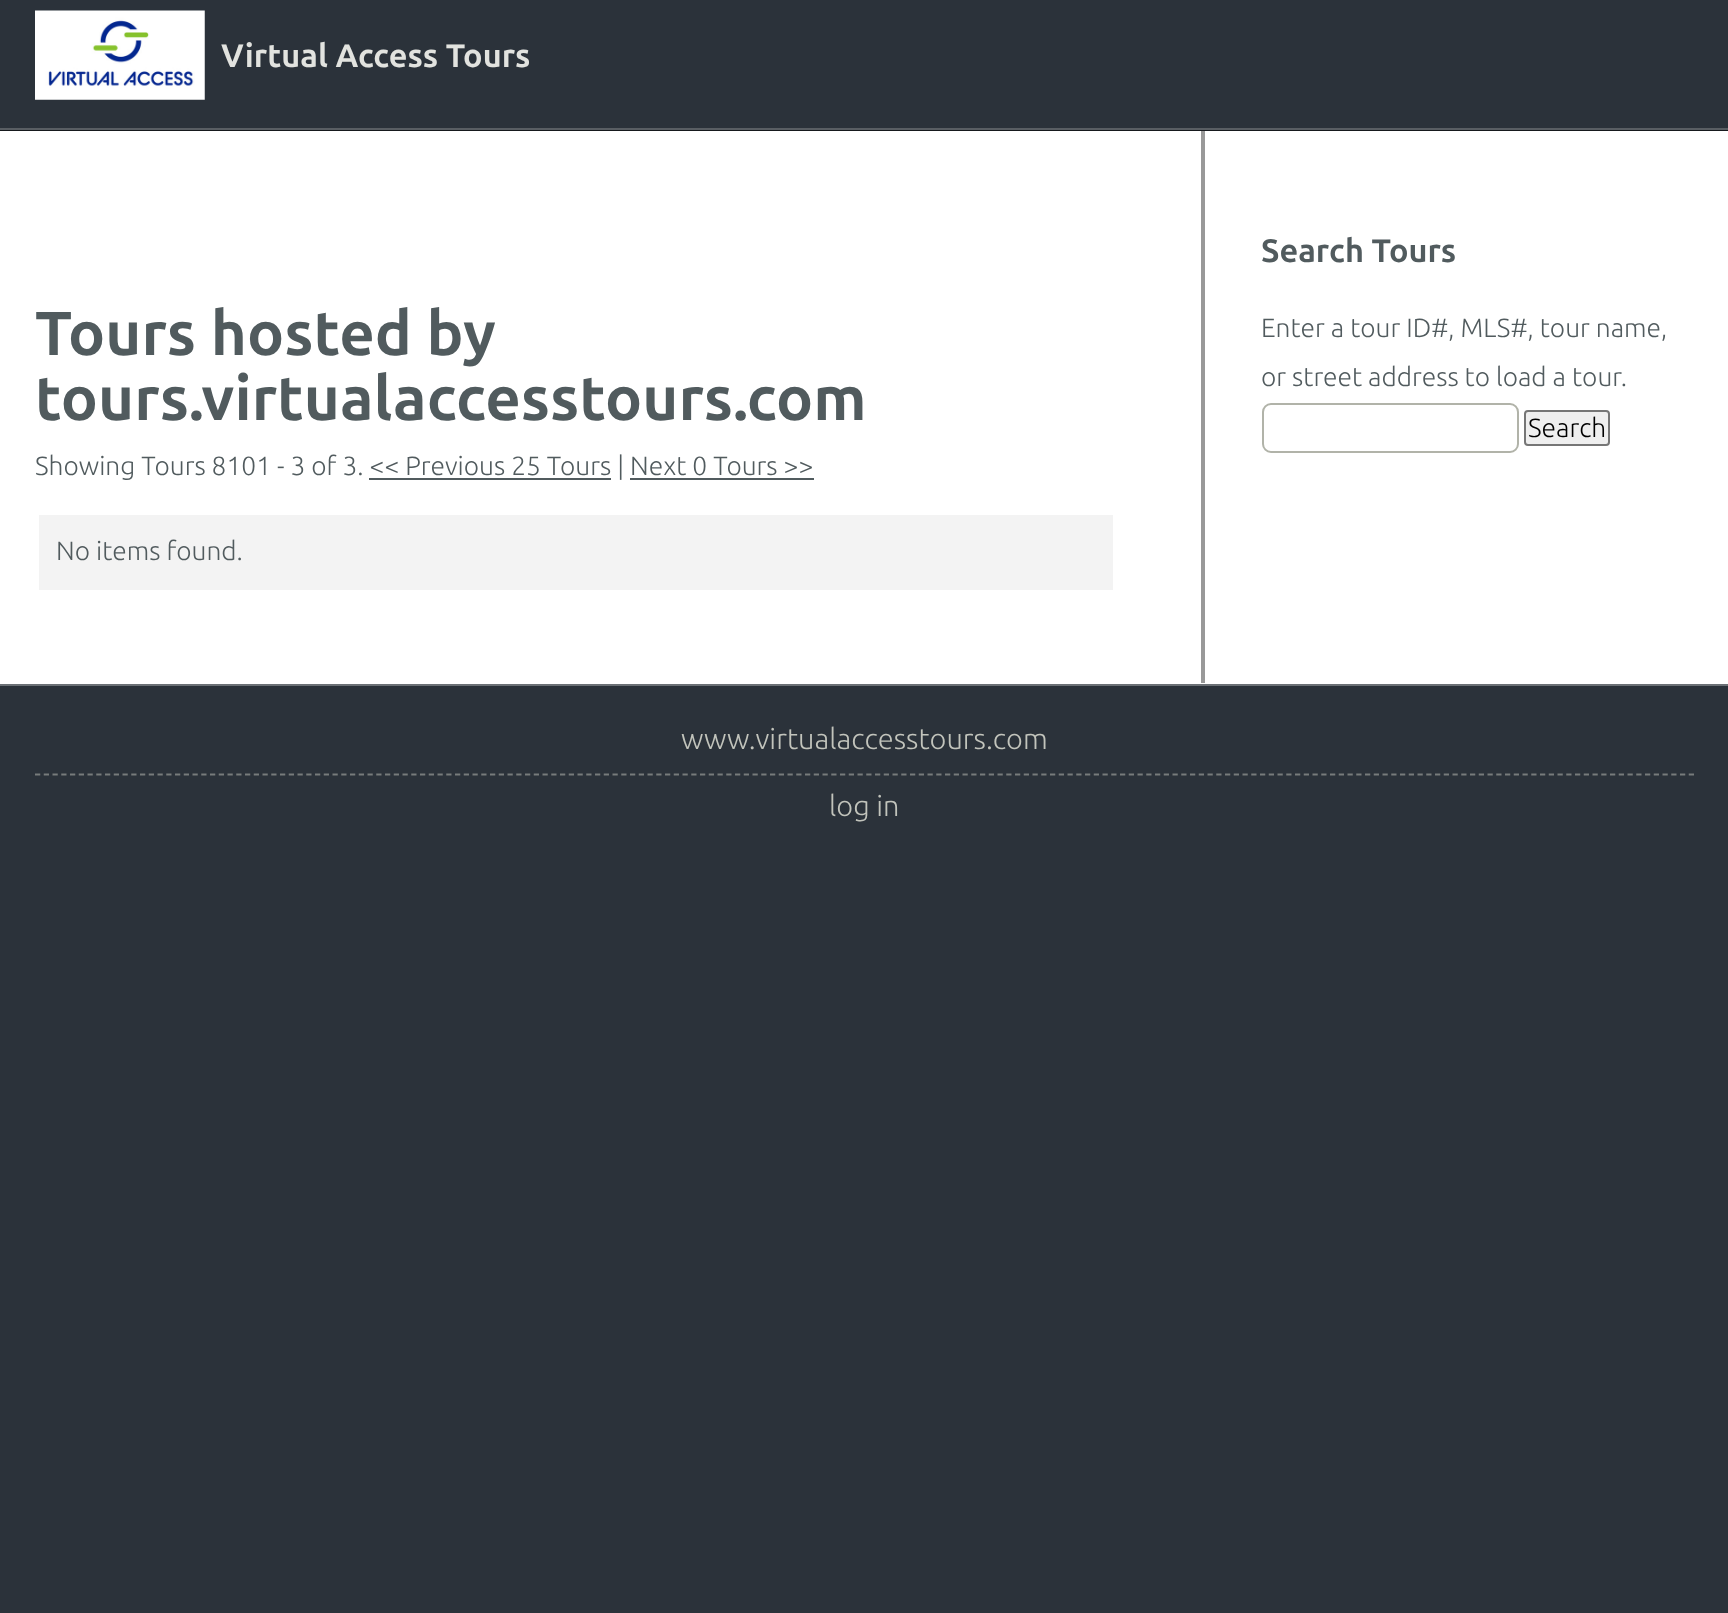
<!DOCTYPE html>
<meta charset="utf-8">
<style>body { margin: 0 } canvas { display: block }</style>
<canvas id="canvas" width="1728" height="1613"></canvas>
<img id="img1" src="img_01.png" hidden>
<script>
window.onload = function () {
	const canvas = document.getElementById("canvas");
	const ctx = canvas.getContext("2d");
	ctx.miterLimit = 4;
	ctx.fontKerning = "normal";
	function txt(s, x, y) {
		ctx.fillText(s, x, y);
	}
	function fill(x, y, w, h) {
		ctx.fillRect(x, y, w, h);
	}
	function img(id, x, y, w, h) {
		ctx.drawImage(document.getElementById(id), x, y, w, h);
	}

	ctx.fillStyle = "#2B323A";
	fill(0, 0, 1728, 1613);
	ctx.fillStyle = "#16191D";
	fill(0, 130, 1728, 1);
	img("img1", 35, 10, 170, 90);
	ctx.fillStyle = "#595E63";
	fill(0, 128, 1728, 2);
	ctx.fillStyle = "#FFFFFF";
	fill(0, 131, 1728, 553);
	ctx.fillStyle = "#515B5E";
	fill(369, 478, 242, 2);
	fill(630, 478, 184, 2);
	ctx.fillStyle = "#F3F3F3";
	fill(39, 515, 1074, 75);
	ctx.fillStyle = "#999999";
	fill(1201, 131, 4, 552);
	ctx.beginPath();
	ctx.roundRect(1263, 404, 255, 48, 8);
	ctx.strokeStyle = "#B1B3A9";
	ctx.lineWidth = 2;
	ctx.stroke();
	ctx.fillStyle = "#EFEFEF";
	ctx.beginPath();
	ctx.roundRect(1525, 411, 84, 34, 3);
	ctx.fill();
	ctx.strokeStyle = "#767676";
	ctx.stroke();
	ctx.fillStyle = "#6B7075";
	fill(0, 684, 1728, 2);
	ctx.beginPath();
	ctx.moveTo(35, 774.5);
	ctx.lineTo(1694, 774.5);
	ctx.strokeStyle = "#777B7B";
	ctx.lineWidth = 1.8;
	ctx.setLineDash([5.25, 3.5]);
	ctx.stroke();
	ctx.font = "bold 32.5px Ubuntu";
	ctx.fillStyle = "#E2E3DF";
	txt("Virtual Access Tours", 221, 67);
	ctx.font = "bold 61.9px Ubuntu";
	ctx.fillStyle = "#515B5E";
	txt("Tours hosted by", 35, 355);
	txt("tours.virtualaccesstours.com", 35, 420);
	ctx.font = "300 26.35px Ubuntu";
	txt("Showing Tours 8101 - 3 of 3. << Previous 25 Tours | Next 0 Tours >>", 35, 475);
	txt("No items found.", 56, 560);
	ctx.font = "bold 32.5px Ubuntu";
	txt("Search Tours", 1261, 262);
	ctx.font = "300 26.35px Ubuntu";
	txt("Enter a tour ID#, MLS#, tour name,", 1261, 337);
	txt("or street address to load a tour.", 1261, 386);
	ctx.fillStyle = "#000000";
	txt("Search", 1528, 437);
	ctx.font = "300 29px Ubuntu";
	ctx.fillStyle = "#C2C4BC";
	txt("www.virtualaccesstours.com", 681, 749);
	txt("log in", 829, 816);
};
</script>
